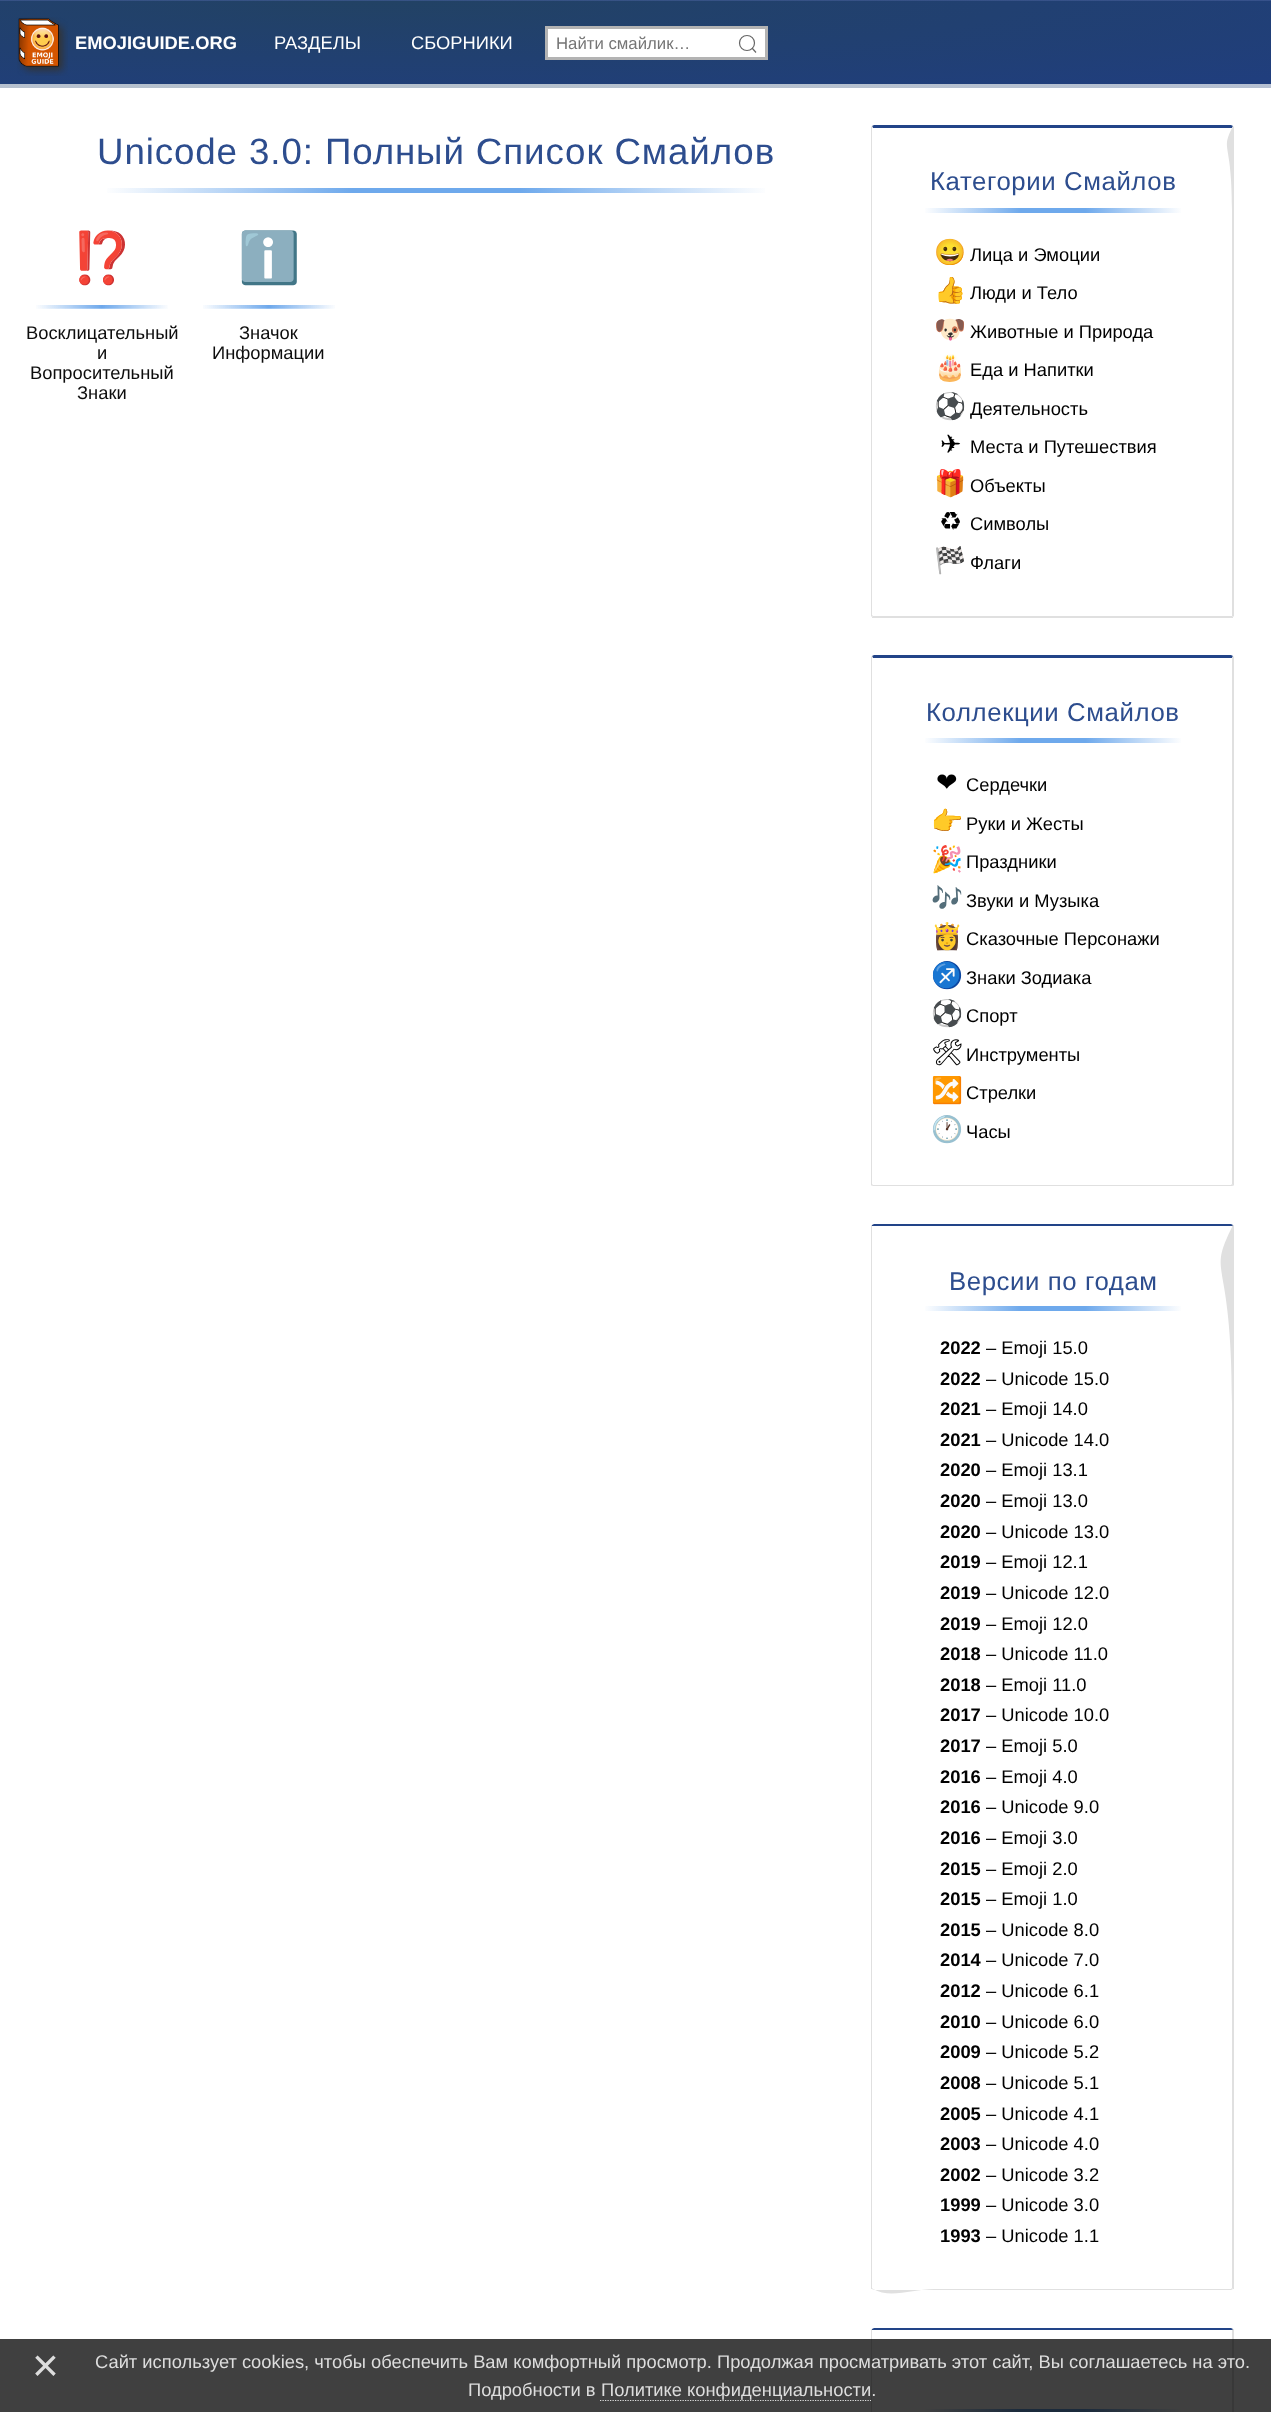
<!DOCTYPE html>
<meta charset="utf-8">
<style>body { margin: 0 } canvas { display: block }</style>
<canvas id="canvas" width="1271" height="2412"></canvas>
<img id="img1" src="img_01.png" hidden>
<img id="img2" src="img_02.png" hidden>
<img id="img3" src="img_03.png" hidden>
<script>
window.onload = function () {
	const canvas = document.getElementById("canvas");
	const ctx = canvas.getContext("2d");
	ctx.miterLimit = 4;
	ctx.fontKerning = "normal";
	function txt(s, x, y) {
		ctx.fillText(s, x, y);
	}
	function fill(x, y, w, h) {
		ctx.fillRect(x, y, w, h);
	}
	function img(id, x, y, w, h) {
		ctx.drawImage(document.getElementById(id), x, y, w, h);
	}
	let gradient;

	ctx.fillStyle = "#FFFFFF";
	fill(0, 0, 1271, 2412);
	gradient = ctx.createRadialGradient(381, -870.92, 0, 381, -870.92, 1258);
	gradient.addColorStop(0, "#385574");
	gradient.addColorStop(1, "#36518B");
	ctx.fillStyle = gradient;
	ctx.beginPath();
	ctx.rect(0, 0, 1271, 1);
	ctx.save();
	ctx.clip();
	ctx.scale(1, 117 / 1258);
	ctx.fillRect(0, 0, 1271, 25935);
	ctx.restore();
	gradient = ctx.createRadialGradient(381, 12.9, 0, 381, 12.9, 1258);
	gradient.addColorStop(0, "#224264");
	gradient.addColorStop(1, "#203E7E");
	ctx.fillStyle = gradient;
	ctx.beginPath();
	ctx.rect(0, 1, 1271, 83);
	ctx.save();
	ctx.clip();
	ctx.scale(1, 117 / 1258);
	ctx.fillRect(0, 0, 1271, 25935);
	ctx.restore();
	gradient = ctx.createRadialGradient(381, 903.18, 0, 381, 903.18, 1258);
	gradient.addColorStop(0, "#B6C1CC");
	gradient.addColorStop(1, "#B5BFD4");
	ctx.fillStyle = gradient;
	ctx.beginPath();
	ctx.rect(0, 84, 1271, 4);
	ctx.save();
	ctx.clip();
	ctx.scale(1, 117 / 1258);
	ctx.fillRect(0, 0, 1271, 25935);
	ctx.restore();
	img("img1", 17, 17, 51, 59);
	ctx.fillStyle = "#FFFFFF";
	fill(548, 29, 217, 28);
	ctx.beginPath();
	ctx.arc(747, 43, 7.5, 0, Math.PI * 2);
	ctx.strokeStyle = "#666666";
	ctx.lineWidth = 1.2;
	ctx.stroke();
	ctx.beginPath();
	ctx.moveTo(752, 48);
	ctx.lineTo(756, 52.5);
	ctx.stroke();
	ctx.strokeStyle = "#B3B3B3";
	ctx.lineWidth = 3;
	ctx.strokeRect(546.5, 27.5, 220, 31);
	gradient = ctx.createLinearGradient(19, 190, 853, 190);
	gradient.addColorStop(0.1, "#FFFFFF");
	gradient.addColorStop(0.4, "#6EA9EC");
	gradient.addColorStop(0.6, "#6EA9EC");
	gradient.addColorStop(0.9, "#FFFFFF");
	ctx.fillStyle = gradient;
	fill(107, 188, 658, 5);
	img("img2", 36, 305, 132, 4);
	img("img3", 203, 305, 132, 4);
	ctx.fillStyle = "#224488";
	ctx.beginPath();
	ctx.moveTo(874, 125);
	ctx.lineTo(872, 126);
	ctx.lineTo(873, 128);
	ctx.lineTo(1232, 128);
	ctx.lineTo(1233, 126);
	ctx.lineTo(1231, 125);
	ctx.closePath();
	ctx.fill();
	ctx.fillStyle = "#E0E0E0";
	ctx.beginPath();
	ctx.moveTo(1234, 616);
	ctx.lineTo(1233, 617);
	ctx.lineTo(1232, 616);
	ctx.lineTo(1232, 210);
	ctx.bezierCurveTo(1232, 138, 1220, 152, 1233, 126);
	ctx.lineTo(1234, 127);
	ctx.closePath();
	ctx.fill();
	ctx.beginPath();
	ctx.moveTo(872, 618);
	ctx.lineTo(872, 617);
	ctx.lineTo(873, 616);
	ctx.lineTo(1232, 616);
	ctx.lineTo(1233, 617);
	ctx.lineTo(1233, 618);
	ctx.closePath();
	ctx.fill();
	ctx.beginPath();
	ctx.moveTo(871, 127);
	ctx.lineTo(872, 126);
	ctx.lineTo(873, 128);
	ctx.lineTo(872, 128);
	ctx.lineTo(872, 615);
	ctx.lineTo(873, 616);
	ctx.lineTo(872, 617);
	ctx.lineTo(871, 616);
	ctx.closePath();
	ctx.fill();
	gradient = ctx.createLinearGradient(891, 210, 1215, 210);
	gradient.addColorStop(0.1, "#FFFFFF");
	gradient.addColorStop(0.4, "#6EA9EC");
	gradient.addColorStop(0.6, "#6EA9EC");
	gradient.addColorStop(0.9, "#FFFFFF");
	ctx.fillStyle = gradient;
	fill(925, 208, 256, 5);
	ctx.fillStyle = "#224488";
	ctx.beginPath();
	ctx.moveTo(874, 655);
	ctx.lineTo(872, 656);
	ctx.lineTo(873, 658);
	ctx.lineTo(1232, 658);
	ctx.lineTo(1233, 656);
	ctx.lineTo(1231, 655);
	ctx.closePath();
	ctx.fill();
	ctx.fillStyle = "#E0E0E0";
	ctx.beginPath();
	ctx.moveTo(1234, 1185);
	ctx.lineTo(1233, 1186);
	ctx.lineTo(1232, 1184);
	ctx.lineTo(1232, 658);
	ctx.lineTo(1233, 656);
	ctx.lineTo(1234, 657);
	ctx.closePath();
	ctx.fill();
	ctx.beginPath();
	ctx.moveTo(1233, 1186);
	ctx.lineTo(1231, 1186);
	ctx.lineTo(874, 1186);
	ctx.lineTo(872, 1186);
	ctx.lineTo(873, 1185);
	ctx.lineTo(1231, 1185);
	ctx.lineTo(1232, 1184);
	ctx.closePath();
	ctx.fill();
	ctx.beginPath();
	ctx.moveTo(871, 657);
	ctx.lineTo(872, 656);
	ctx.lineTo(873, 658);
	ctx.lineTo(872, 658);
	ctx.lineTo(872, 1184);
	ctx.lineTo(873, 1185);
	ctx.lineTo(872, 1186);
	ctx.lineTo(871, 1185);
	ctx.closePath();
	ctx.fill();
	gradient = ctx.createLinearGradient(891, 740, 1215, 740);
	gradient.addColorStop(0.1, "#FFFFFF");
	gradient.addColorStop(0.4, "#6EA9EC");
	gradient.addColorStop(0.6, "#6EA9EC");
	gradient.addColorStop(0.9, "#FFFFFF");
	ctx.fillStyle = gradient;
	fill(925, 738, 256, 5);
	ctx.fillStyle = "#224488";
	ctx.beginPath();
	ctx.moveTo(874, 1224);
	ctx.lineTo(872, 1225);
	ctx.lineTo(872, 1226);
	ctx.lineTo(1232, 1226);
	ctx.lineTo(1232, 1227);
	ctx.lineTo(1233, 1225);
	ctx.lineTo(1231, 1224);
	ctx.closePath();
	ctx.fill();
	ctx.fillStyle = "#E0E0E0";
	ctx.beginPath();
	ctx.moveTo(1234, 2289);
	ctx.lineTo(1233, 2289);
	ctx.lineTo(1232, 2288);
	ctx.lineTo(1232, 1404);
	ctx.bezierCurveTo(1232, 1248, 1206, 1280, 1233, 1225);
	ctx.lineTo(1234, 1225);
	ctx.closePath();
	ctx.fill();
	ctx.beginPath();
	ctx.moveTo(874, 2290);
	ctx.lineTo(1231, 2290);
	ctx.lineTo(1233, 2289);
	ctx.lineTo(1232, 2288);
	ctx.lineTo(1231, 2289);
	ctx.lineTo(934, 2289);
	ctx.bezierCurveTo(913, 2289, 890, 2299, 873, 2289);
	ctx.lineTo(872, 2289);
	ctx.closePath();
	ctx.fill();
	ctx.beginPath();
	ctx.moveTo(871, 1225);
	ctx.lineTo(872, 1225);
	ctx.lineTo(872, 1226);
	ctx.lineTo(872, 2288);
	ctx.lineTo(873, 2289);
	ctx.lineTo(872, 2289);
	ctx.lineTo(871, 2289);
	ctx.closePath();
	ctx.fill();
	gradient = ctx.createLinearGradient(891, 1309, 1215, 1309);
	gradient.addColorStop(0.1, "#FFFFFF");
	gradient.addColorStop(0.4, "#6EA9EC");
	gradient.addColorStop(0.6, "#6EA9EC");
	gradient.addColorStop(0.9, "#FFFFFF");
	ctx.fillStyle = gradient;
	fill(925, 1306, 256, 5);
	ctx.fillStyle = "#224488";
	ctx.beginPath();
	ctx.moveTo(874, 2328);
	ctx.lineTo(872, 2329);
	ctx.lineTo(872, 2330);
	ctx.lineTo(1232, 2330);
	ctx.lineTo(1232, 2331);
	ctx.lineTo(1233, 2329);
	ctx.lineTo(1231, 2328);
	ctx.closePath();
	ctx.fill();
	ctx.fillStyle = "#E0E0E0";
	ctx.beginPath();
	ctx.moveTo(1234, 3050);
	ctx.lineTo(1233, 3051);
	ctx.lineTo(1232, 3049);
	ctx.lineTo(1232, 2331);
	ctx.lineTo(1233, 2329);
	ctx.lineTo(1234, 2329);
	ctx.closePath();
	ctx.fill();
	ctx.beginPath();
	ctx.moveTo(871, 2329);
	ctx.lineTo(872, 2329);
	ctx.lineTo(872, 2330);
	ctx.lineTo(872, 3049);
	ctx.lineTo(873, 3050);
	ctx.lineTo(872, 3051);
	ctx.lineTo(871, 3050);
	ctx.closePath();
	ctx.fill();
	gradient = ctx.createLinearGradient(891, 2411, 1215, 2411);
	gradient.addColorStop(0.1, "#FFFFFF");
	gradient.addColorStop(0.4, "#6EA9EC");
	gradient.addColorStop(0.6, "#6EA9EC");
	gradient.addColorStop(0.9, "#FFFFFF");
	ctx.fillStyle = gradient;
	fill(925, 2409, 256, 3);
	ctx.fillStyle = "rgba(0, 0, 0, 0.75)";
	fill(0, 2339, 1271, 73);
	ctx.beginPath();
	ctx.moveTo(600, 2400.5);
	ctx.lineTo(871, 2400.5);
	ctx.strokeStyle = "#DDDDDD";
	ctx.lineWidth = 1.2;
	ctx.setLineDash([1.25, 1.25]);
	ctx.stroke();
	ctx.font = "bold 18.33px Liberation Sans";
	ctx.fillStyle = "#FFFFFF";
	txt("EMOJIGUIDE.ORG", 75, 49);
	ctx.font = "18.33px Liberation Sans";
	txt("РАЗДЕЛЫ", 274, 49);
	txt("СБОРНИКИ", 411, 49);
	ctx.font = "16.75px Liberation Sans";
	ctx.fillStyle = "#757575";
	txt("Найти смайлик…", 556, 49);
	ctx.letterSpacing = "0.9px";
	ctx.font = "36.7px Liberation Sans";
	ctx.fillStyle = "#2D4D8E";
	txt("Unicode 3.0: Полный Список Смайлов", 97, 164);
	ctx.letterSpacing = "0px";
	ctx.font = "50px Noto Color Emoji";
	ctx.fillStyle = "#000000";
	txt("⁉️", 71, 275);
	ctx.font = "18.33px Liberation Sans";
	ctx.fillStyle = "#0D0D0D";
	txt("Восклицательный", 26, 339);
	txt("и", 97, 359);
	txt("Вопросительный", 30, 379);
	txt("Знаки", 77, 399);
	ctx.font = "50px Noto Color Emoji";
	ctx.fillStyle = "#000000";
	txt("ℹ️", 238, 275);
	ctx.font = "18.33px Liberation Sans";
	ctx.fillStyle = "#0D0D0D";
	txt("Значок", 239, 339);
	txt("Информации", 212, 359);
	ctx.letterSpacing = "0.6px";
	ctx.font = "25.75px Liberation Sans";
	ctx.fillStyle = "#2D4D8E";
	txt("Категории Смайлов", 930, 190);
	ctx.letterSpacing = "0px";
	ctx.font = "25.75px Noto Color Emoji";
	ctx.fillStyle = "#000000";
	txt("😀", 934, 261);
	ctx.font = "18.33px Liberation Sans";
	txt("Лица и Эмоции", 970, 261);
	ctx.font = "25.75px Noto Color Emoji";
	txt("👍", 934, 299);
	ctx.font = "18.33px Liberation Sans";
	txt("Люди и Тело", 970, 299);
	ctx.font = "25.75px Noto Color Emoji";
	txt("🐶", 934, 338);
	ctx.font = "18.33px Liberation Sans";
	txt("Животные и Природа", 970, 338);
	ctx.font = "25.75px Noto Color Emoji";
	txt("🎂", 934, 376);
	ctx.font = "18.33px Liberation Sans";
	txt("Еда и Напитки", 970, 376);
	ctx.font = "25.75px Noto Color Emoji";
	txt("⚽", 934, 415);
	ctx.font = "18.33px Liberation Sans";
	txt("Деятельность", 970, 415);
	ctx.font = "25.75px DejaVu Sans";
	txt("✈", 940, 453);
	ctx.font = "18.33px Liberation Sans";
	txt("Места и Путешествия", 970, 453);
	ctx.font = "25.75px Noto Color Emoji";
	txt("🎁", 934, 492);
	ctx.font = "18.33px Liberation Sans";
	txt("Объекты", 970, 492);
	ctx.font = "25.75px DejaVu Sans";
	txt("♻", 939, 530);
	ctx.font = "18.33px Liberation Sans";
	txt("Символы", 970, 530);
	ctx.font = "25.75px Noto Color Emoji";
	txt("🏁", 934, 569);
	ctx.font = "18.33px Liberation Sans";
	txt("Флаги", 970, 569);
	ctx.letterSpacing = "0.6px";
	ctx.font = "25.75px Liberation Sans";
	ctx.fillStyle = "#2D4D8E";
	txt("Коллекции Смайлов", 926, 721);
	ctx.letterSpacing = "0px";
	ctx.font = "25.75px DejaVu Sans";
	ctx.fillStyle = "#000000";
	txt("❤", 936, 791);
	ctx.font = "18.33px Liberation Sans";
	txt("Сердечки", 966, 791);
	ctx.font = "25.75px Noto Color Emoji";
	txt("👉", 931, 830);
	ctx.font = "18.33px Liberation Sans";
	txt("Руки и Жесты", 966, 830);
	ctx.font = "25.75px Noto Color Emoji";
	txt("🎉", 931, 868);
	ctx.font = "18.33px Liberation Sans";
	txt("Праздники", 966, 868);
	ctx.font = "25.75px Noto Color Emoji";
	txt("🎶", 931, 907);
	ctx.font = "18.33px Liberation Sans";
	txt("Звуки и Музыка", 966, 907);
	ctx.font = "25.75px Noto Color Emoji";
	txt("👸", 931, 945);
	ctx.font = "18.33px Liberation Sans";
	txt("Сказочные Персонажи", 966, 945);
	ctx.font = "25.75px Noto Color Emoji";
	txt("♐", 931, 984);
	ctx.font = "18.33px Liberation Sans";
	txt("Знаки Зодиака", 966, 984);
	ctx.font = "25.75px Noto Color Emoji";
	txt("⚽", 931, 1022);
	ctx.font = "18.33px Liberation Sans";
	txt("Спорт", 966, 1022);
	ctx.font = "25.75px Noto Emoji";
	txt("🛠", 931, 1061);
	ctx.font = "18.33px Liberation Sans";
	txt("Инструменты", 966, 1061);
	ctx.font = "25.75px Noto Color Emoji";
	txt("🔀", 931, 1099);
	ctx.font = "18.33px Liberation Sans";
	txt("Стрелки", 966, 1099);
	ctx.font = "25.75px Noto Color Emoji";
	txt("🕐", 931, 1138);
	ctx.font = "18.33px Liberation Sans";
	txt("Часы", 966, 1138);
	ctx.letterSpacing = "0.6px";
	ctx.font = "25.75px Liberation Sans";
	ctx.fillStyle = "#2D4D8E";
	txt("Версии по годам", 949, 1290);
	ctx.letterSpacing = "0px";
	ctx.font = "bold 18.33px Liberation Sans";
	ctx.fillStyle = "#000000";
	txt("2022", 940, 1354);
	ctx.font = "18.33px Liberation Sans";
	txt("– Emoji 15.0", 986, 1354);
	ctx.font = "bold 18.33px Liberation Sans";
	txt("2022", 940, 1385);
	ctx.font = "18.33px Liberation Sans";
	txt("– Unicode 15.0", 986, 1385);
	ctx.font = "bold 18.33px Liberation Sans";
	txt("2021", 940, 1415);
	ctx.font = "18.33px Liberation Sans";
	txt("– Emoji 14.0", 986, 1415);
	ctx.font = "bold 18.33px Liberation Sans";
	txt("2021", 940, 1446);
	ctx.font = "18.33px Liberation Sans";
	txt("– Unicode 14.0", 986, 1446);
	ctx.font = "bold 18.33px Liberation Sans";
	txt("2020", 940, 1476);
	ctx.font = "18.33px Liberation Sans";
	txt("– Emoji 13.1", 986, 1476);
	ctx.font = "bold 18.33px Liberation Sans";
	txt("2020", 940, 1507);
	ctx.font = "18.33px Liberation Sans";
	txt("– Emoji 13.0", 986, 1507);
	ctx.font = "bold 18.33px Liberation Sans";
	txt("2020", 940, 1538);
	ctx.font = "18.33px Liberation Sans";
	txt("– Unicode 13.0", 986, 1538);
	ctx.font = "bold 18.33px Liberation Sans";
	txt("2019", 940, 1568);
	ctx.font = "18.33px Liberation Sans";
	txt("– Emoji 12.1", 986, 1568);
	ctx.font = "bold 18.33px Liberation Sans";
	txt("2019", 940, 1599);
	ctx.font = "18.33px Liberation Sans";
	txt("– Unicode 12.0", 986, 1599);
	ctx.font = "bold 18.33px Liberation Sans";
	txt("2019", 940, 1630);
	ctx.font = "18.33px Liberation Sans";
	txt("– Emoji 12.0", 986, 1630);
	ctx.font = "bold 18.33px Liberation Sans";
	txt("2018", 940, 1660);
	ctx.font = "18.33px Liberation Sans";
	txt("– Unicode 11.0", 986, 1660);
	ctx.font = "bold 18.33px Liberation Sans";
	txt("2018", 940, 1691);
	ctx.font = "18.33px Liberation Sans";
	txt("– Emoji 11.0", 986, 1691);
	ctx.font = "bold 18.33px Liberation Sans";
	txt("2017", 940, 1721);
	ctx.font = "18.33px Liberation Sans";
	txt("– Unicode 10.0", 986, 1721);
	ctx.font = "bold 18.33px Liberation Sans";
	txt("2017", 940, 1752);
	ctx.font = "18.33px Liberation Sans";
	txt("– Emoji 5.0", 986, 1752);
	ctx.font = "bold 18.33px Liberation Sans";
	txt("2016", 940, 1783);
	ctx.font = "18.33px Liberation Sans";
	txt("– Emoji 4.0", 986, 1783);
	ctx.font = "bold 18.33px Liberation Sans";
	txt("2016", 940, 1813);
	ctx.font = "18.33px Liberation Sans";
	txt("– Unicode 9.0", 986, 1813);
	ctx.font = "bold 18.33px Liberation Sans";
	txt("2016", 940, 1844);
	ctx.font = "18.33px Liberation Sans";
	txt("– Emoji 3.0", 986, 1844);
	ctx.font = "bold 18.33px Liberation Sans";
	txt("2015", 940, 1875);
	ctx.font = "18.33px Liberation Sans";
	txt("– Emoji 2.0", 986, 1875);
	ctx.font = "bold 18.33px Liberation Sans";
	txt("2015", 940, 1905);
	ctx.font = "18.33px Liberation Sans";
	txt("– Emoji 1.0", 986, 1905);
	ctx.font = "bold 18.33px Liberation Sans";
	txt("2015", 940, 1936);
	ctx.font = "18.33px Liberation Sans";
	txt("– Unicode 8.0", 986, 1936);
	ctx.font = "bold 18.33px Liberation Sans";
	txt("2014", 940, 1966);
	ctx.font = "18.33px Liberation Sans";
	txt("– Unicode 7.0", 986, 1966);
	ctx.font = "bold 18.33px Liberation Sans";
	txt("2012", 940, 1997);
	ctx.font = "18.33px Liberation Sans";
	txt("– Unicode 6.1", 986, 1997);
	ctx.font = "bold 18.33px Liberation Sans";
	txt("2010", 940, 2028);
	ctx.font = "18.33px Liberation Sans";
	txt("– Unicode 6.0", 986, 2028);
	ctx.font = "bold 18.33px Liberation Sans";
	txt("2009", 940, 2058);
	ctx.font = "18.33px Liberation Sans";
	txt("– Unicode 5.2", 986, 2058);
	ctx.font = "bold 18.33px Liberation Sans";
	txt("2008", 940, 2089);
	ctx.font = "18.33px Liberation Sans";
	txt("– Unicode 5.1", 986, 2089);
	ctx.font = "bold 18.33px Liberation Sans";
	txt("2005", 940, 2120);
	ctx.font = "18.33px Liberation Sans";
	txt("– Unicode 4.1", 986, 2120);
	ctx.font = "bold 18.33px Liberation Sans";
	txt("2003", 940, 2150);
	ctx.font = "18.33px Liberation Sans";
	txt("– Unicode 4.0", 986, 2150);
	ctx.font = "bold 18.33px Liberation Sans";
	txt("2002", 940, 2181);
	ctx.font = "18.33px Liberation Sans";
	txt("– Unicode 3.2", 986, 2181);
	ctx.font = "bold 18.33px Liberation Sans";
	txt("1999", 940, 2211);
	ctx.font = "18.33px Liberation Sans";
	txt("– Unicode 3.0", 986, 2211);
	ctx.font = "bold 18.33px Liberation Sans";
	txt("1993", 940, 2242);
	ctx.font = "18.33px Liberation Sans";
	txt("– Unicode 1.1", 986, 2242);
	ctx.font = "46px Liberation Sans";
	ctx.fillStyle = "#DDDDDD";
	txt("×", 32, 2381);
	ctx.font = "18.33px Liberation Sans";
	txt("Сайт использует cookies, чтобы обеспечить Вам комфортный просмотр. Продолжая просматривать этот сайт, Вы соглашаетесь на это.", 95, 2368);
	txt("Подробности в", 468, 2396);
	txt("Политике конфиденциальности.", 601, 2396);
};
</script>
